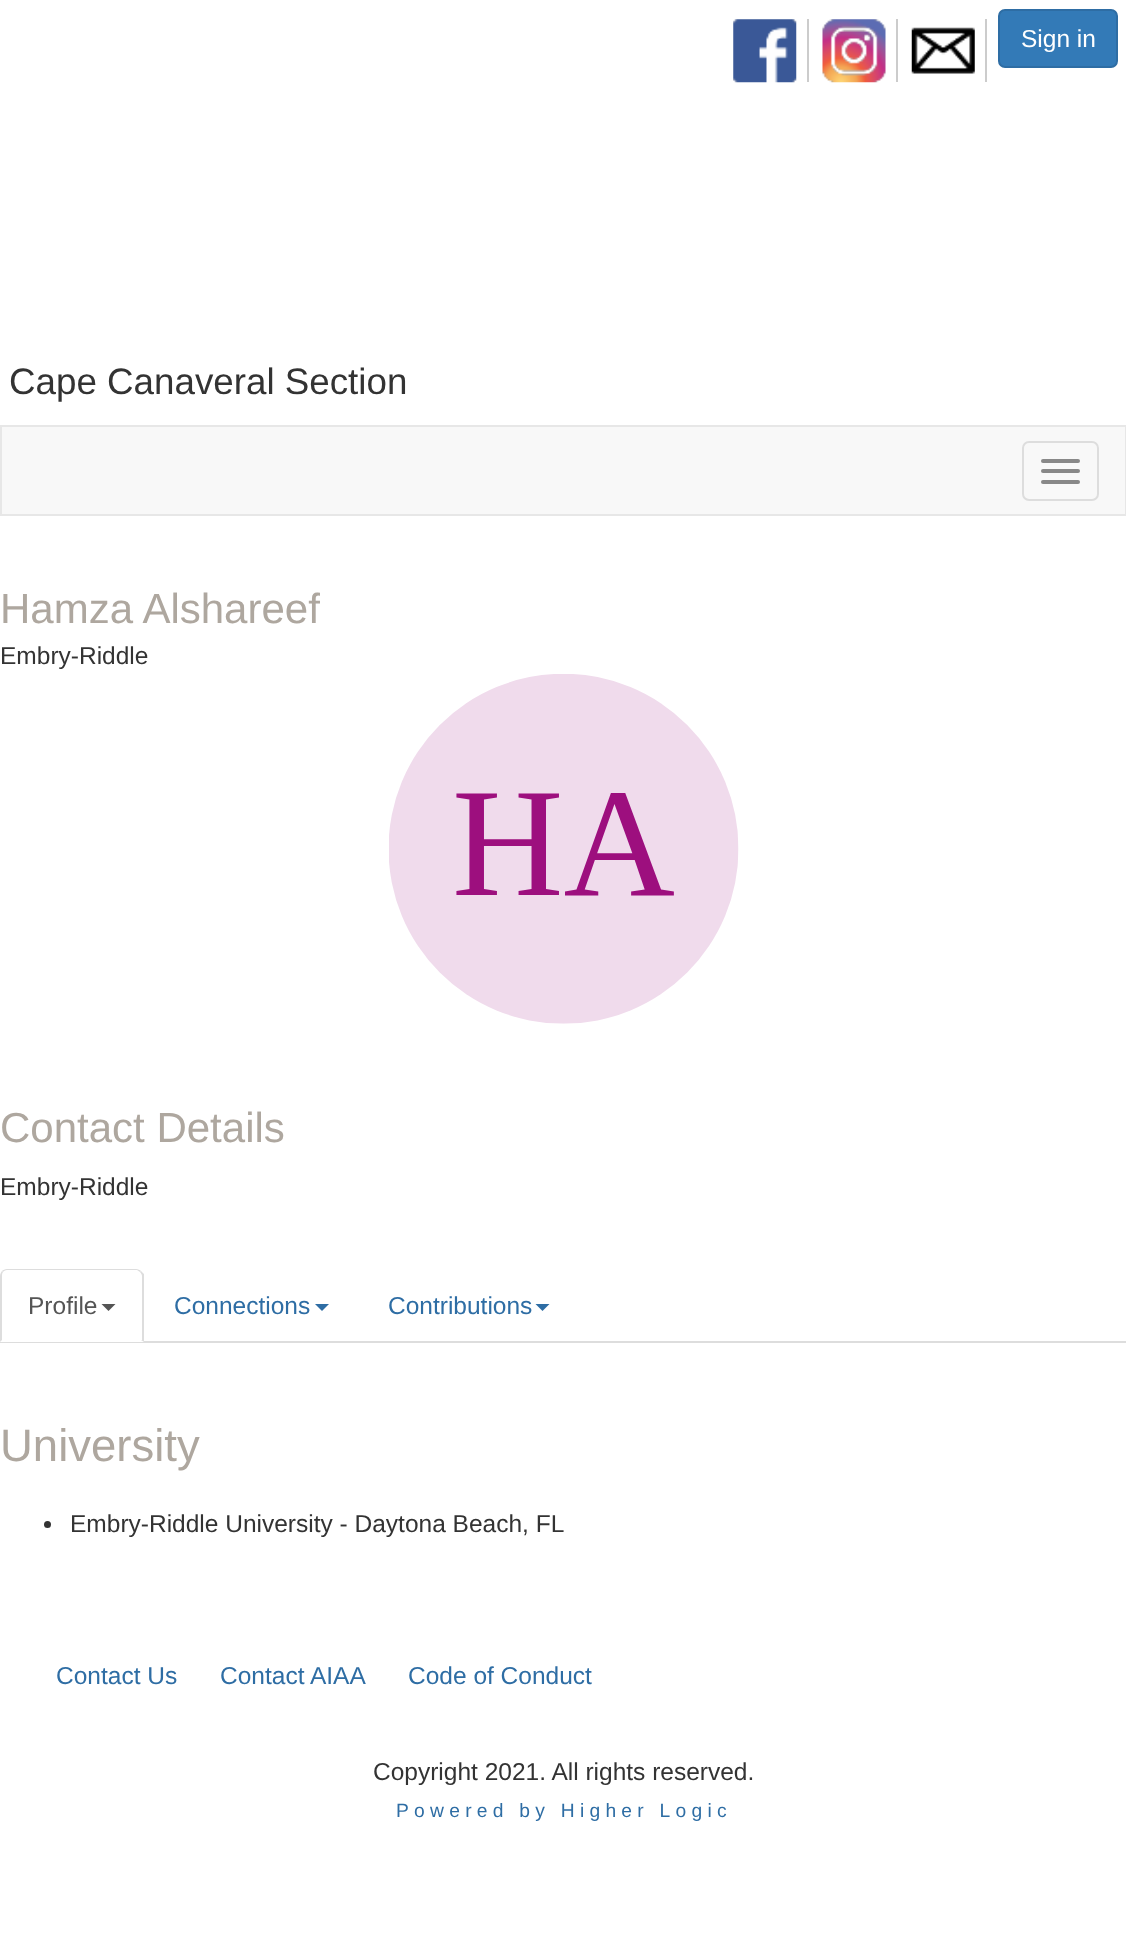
<!DOCTYPE html>
<meta charset="utf-8">
<style>body { margin: 0 } canvas { display: block }</style>
<canvas id="canvas" width="1126" height="1952"></canvas>
<img id="img1" src="img_01.png" hidden>
<img id="img2" src="img_02.png" hidden>
<img id="img3" src="img_03.png" hidden>
<img id="img4" src="img_04.png" hidden>
<script>
window.onload = function () {
	const canvas = document.getElementById("canvas");
	const ctx = canvas.getContext("2d");
	ctx.miterLimit = 4;
	ctx.fontKerning = "normal";
	function txt(s, x, y) {
		ctx.fillText(s, x, y);
	}
	function fill(x, y, w, h) {
		ctx.fillRect(x, y, w, h);
	}
	function round(x, y, w, h, r) {
		ctx.beginPath();
		ctx.roundRect(x, y, w, h, r);
		ctx.fill();
	}
	function img(id, x, y, w, h) {
		ctx.drawImage(document.getElementById(id), x, y, w, h);
	}

	ctx.fillStyle = "#FFFFFF";
	fill(0, 0, 1126, 1952);
	ctx.fillStyle = "#CCCCCC";
	fill(807, 19, 2, 63);
	img("img1", 733, 19, 64, 64);
	fill(896, 19, 2, 63);
	img("img2", 822, 19, 64, 64);
	fill(985, 19, 2, 63);
	img("img3", 911, 27, 64, 47);
	ctx.fillStyle = "#337AB7";
	ctx.beginPath();
	ctx.roundRect(999, 10, 118, 57, 6);
	ctx.fill();
	ctx.strokeStyle = "#2E6DA4";
	ctx.lineWidth = 2;
	ctx.stroke();
	ctx.fillStyle = "#F8F8F8";
	ctx.beginPath();
	ctx.rect(1, 426, 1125, 89);
	ctx.fill();
	ctx.strokeStyle = "#E7E7E7";
	ctx.stroke();
	ctx.beginPath();
	ctx.roundRect(1023, 442, 75, 58, 6);
	ctx.strokeStyle = "#DDDDDD";
	ctx.stroke();
	ctx.fillStyle = "#888888";
	round(1041, 459, 39, 4, 2);
	round(1041, 469, 39, 4, 2);
	round(1041, 480, 39, 4, 2);
	img("img4", 389, 674, 350, 350);
	ctx.fillStyle = "#DDDDDD";
	fill(0, 1341, 1126, 2);
	ctx.fillStyle = "#FFFFFF";
	ctx.beginPath();
	ctx.roundRect(0, 1269, 144, 73, [7, 7, 0, 0]);
	ctx.fill();
	ctx.fillStyle = "#DDDDDD";
	ctx.beginPath();
	ctx.moveTo(7, 1269);
	ctx.bezierCurveTo(5, 1269, 3, 1270, 2, 1271);
	ctx.lineTo(3, 1272);
	ctx.bezierCurveTo(4, 1271, 5, 1270, 7, 1270);
	ctx.lineTo(137, 1270);
	ctx.lineTo(140, 1272);
	ctx.lineTo(141, 1271);
	ctx.bezierCurveTo(140, 1270, 138, 1269, 136, 1269);
	ctx.closePath();
	ctx.fill();
	ctx.beginPath();
	ctx.moveTo(141, 1271);
	ctx.lineTo(144, 1274);
	ctx.lineTo(144, 1342);
	ctx.lineTo(141, 1340);
	ctx.lineTo(142, 1340);
	ctx.lineTo(142, 1276);
	ctx.bezierCurveTo(142, 1275, 141, 1273, 140, 1272);
	ctx.closePath();
	ctx.fill();
	ctx.beginPath();
	ctx.moveTo(0, 1276);
	ctx.lineTo(0, 1342);
	ctx.lineTo(2, 1340);
	ctx.lineTo(2, 1276);
	ctx.bezierCurveTo(2, 1275, 2, 1273, 3, 1272);
	ctx.lineTo(2, 1271);
	ctx.bezierCurveTo(1, 1272, 0, 1274, 0, 1276);
	ctx.closePath();
	ctx.fill();
	ctx.fillStyle = "#555555";
	ctx.beginPath();
	ctx.moveTo(101.5, 1304);
	ctx.lineTo(115.5, 1304);
	ctx.lineTo(108.5, 1311);
	ctx.closePath();
	ctx.fill();
	ctx.fillStyle = "#2E6DA4";
	ctx.beginPath();
	ctx.moveTo(315, 1304);
	ctx.lineTo(329, 1304);
	ctx.lineTo(322, 1311);
	ctx.closePath();
	ctx.fill();
	ctx.beginPath();
	ctx.moveTo(535.5, 1304);
	ctx.lineTo(549.5, 1304);
	ctx.lineTo(542.5, 1311);
	ctx.closePath();
	ctx.fill();
	ctx.fillStyle = "#333333";
	ctx.beginPath();
	ctx.arc(47.5, 1524.5, 3.5, 0, Math.PI * 2);
	ctx.fill();
	ctx.font = "24.5px Liberation Sans";
	ctx.fillStyle = "#FFFFFF";
	txt("Sign in", 1021, 47);
	ctx.font = "36.75px Liberation Sans";
	ctx.fillStyle = "#333333";
	txt("Cape Canaveral Section", 9, 394);
	ctx.font = "42px Liberation Sans";
	ctx.fillStyle = "#AEA79F";
	txt("Hamza Alshareef", 0, 623);
	ctx.font = "24.5px Liberation Sans";
	ctx.fillStyle = "#333333";
	txt("Embry-Riddle", 0, 664);
	ctx.font = "42px Liberation Sans";
	ctx.fillStyle = "#AEA79F";
	txt("Contact Details", 0, 1142);
	ctx.font = "24.5px Liberation Sans";
	ctx.fillStyle = "#333333";
	txt("Embry-Riddle", 0, 1195);
	ctx.fillStyle = "#555555";
	txt("Profile", 28, 1314);
	ctx.fillStyle = "#2E6DA4";
	txt("Connections", 174, 1314);
	txt("Contributions", 388, 1314);
	ctx.font = "45.5px Liberation Sans";
	ctx.fillStyle = "#AEA79F";
	txt("University", 0, 1461);
	ctx.font = "24.5px Liberation Sans";
	ctx.fillStyle = "#333333";
	txt("Embry-Riddle University - Daytona Beach, FL", 70, 1532);
	ctx.fillStyle = "#2E6DA4";
	txt("Contact Us", 56, 1684);
	txt("Contact AIAA", 220, 1684);
	txt("Code of Conduct", 408, 1684);
	ctx.fillStyle = "#333333";
	txt("Copyright 2021. All rights reserved.", 373, 1780);
	ctx.letterSpacing = "5.25px";
	ctx.font = "19.25px Liberation Sans";
	ctx.fillStyle = "#2E6DA4";
	txt("Powered by Higher Logic", 396, 1817);
};
</script>
